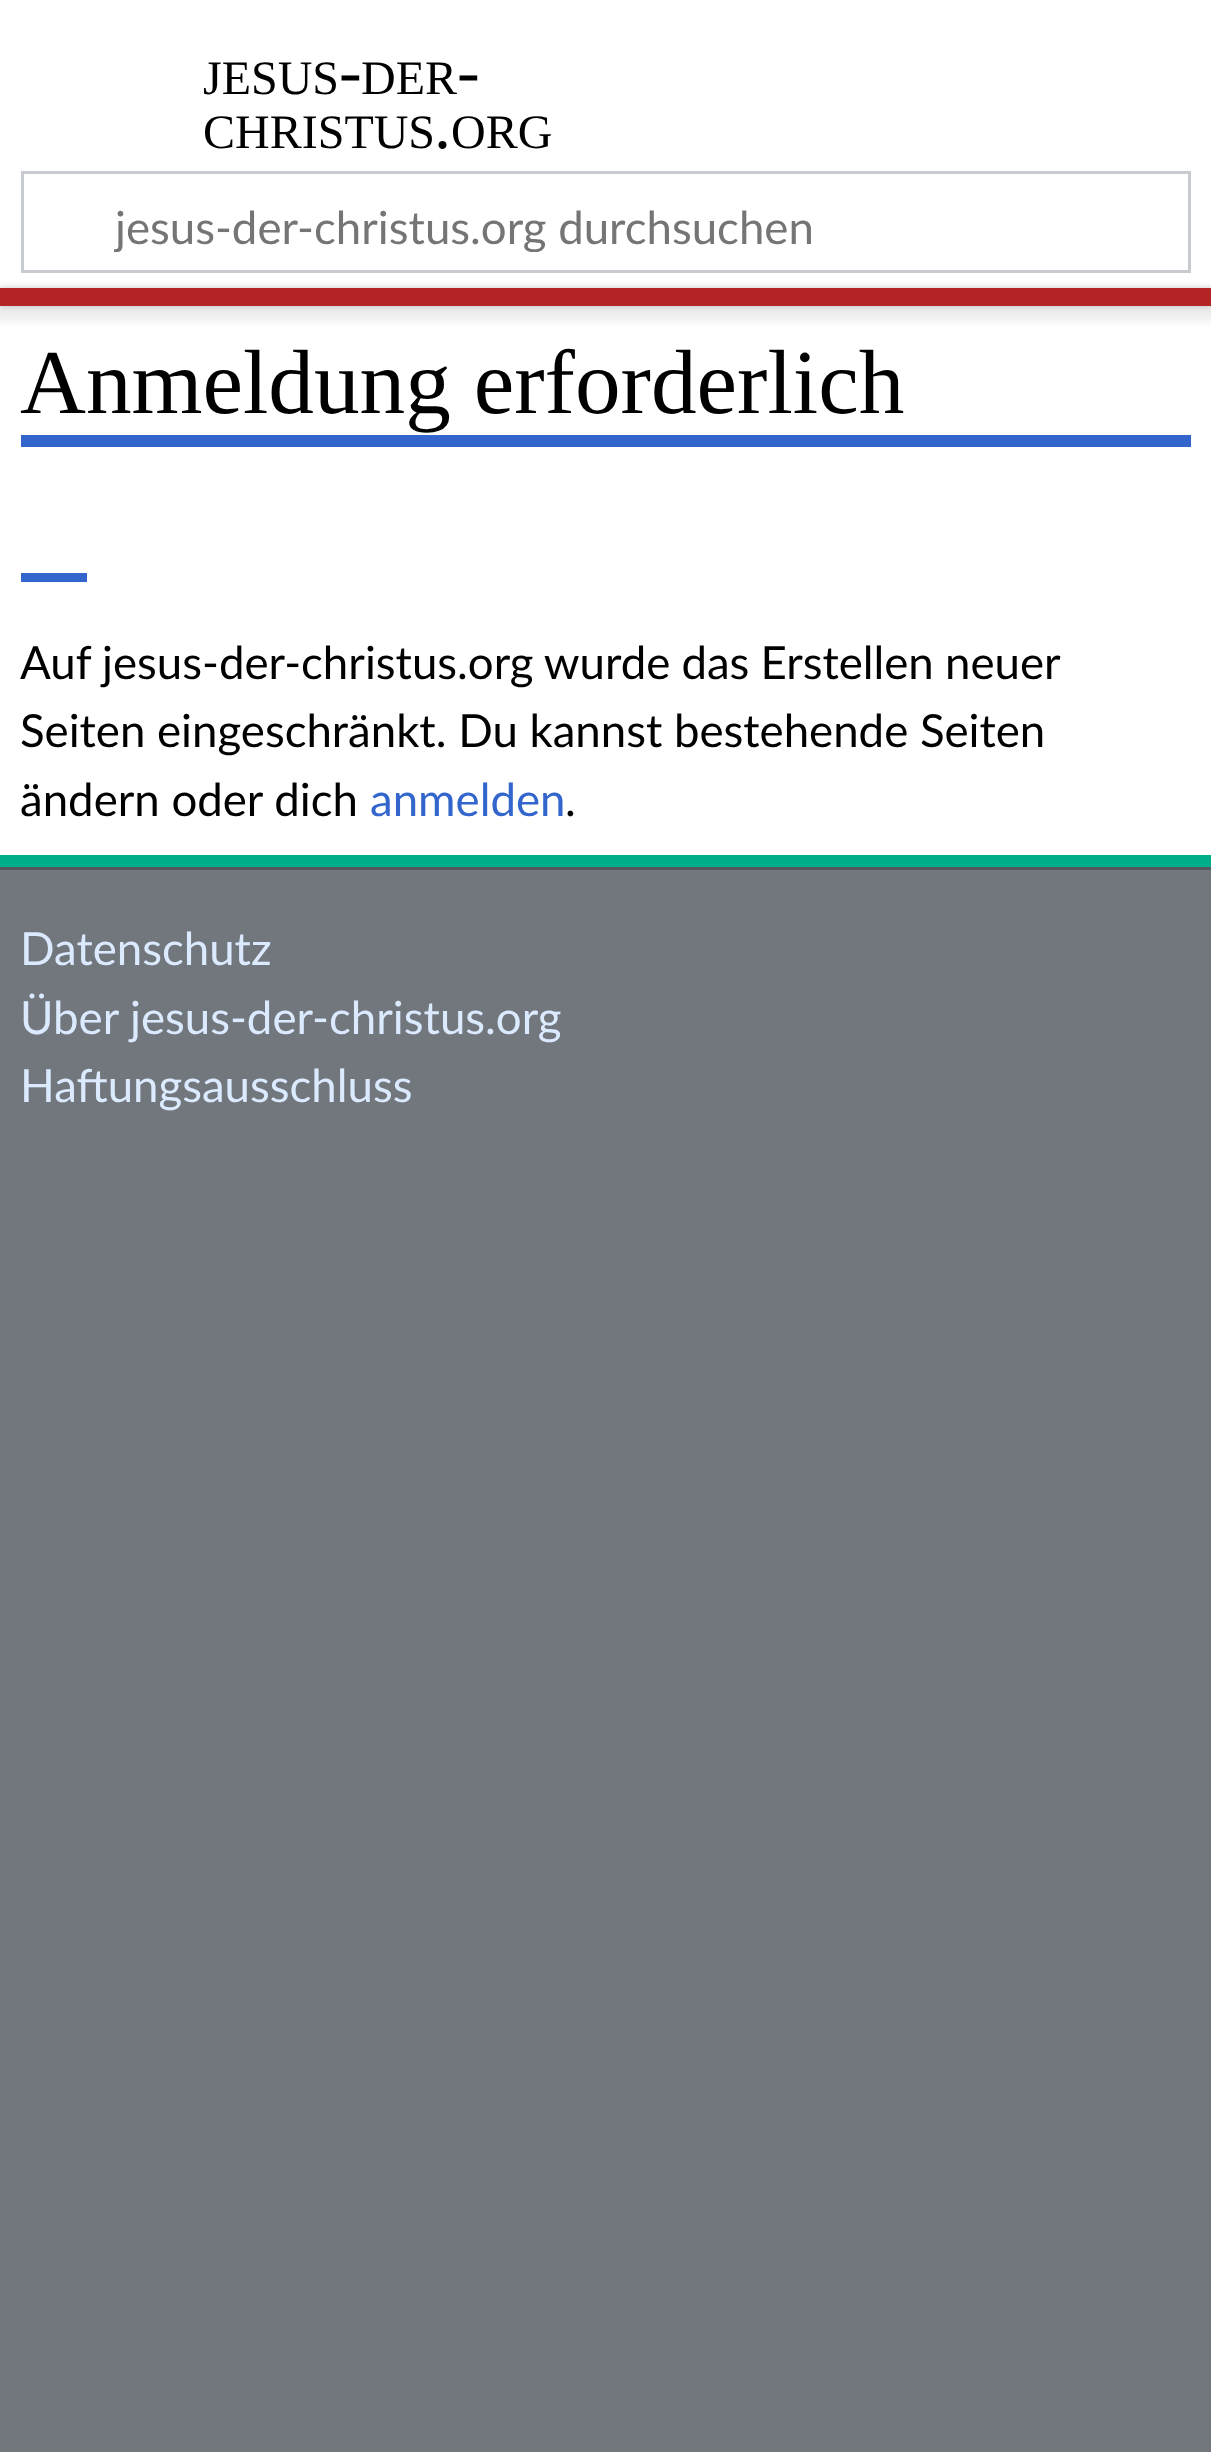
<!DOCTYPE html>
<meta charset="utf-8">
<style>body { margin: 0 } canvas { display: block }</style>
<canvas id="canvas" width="1211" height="2452"></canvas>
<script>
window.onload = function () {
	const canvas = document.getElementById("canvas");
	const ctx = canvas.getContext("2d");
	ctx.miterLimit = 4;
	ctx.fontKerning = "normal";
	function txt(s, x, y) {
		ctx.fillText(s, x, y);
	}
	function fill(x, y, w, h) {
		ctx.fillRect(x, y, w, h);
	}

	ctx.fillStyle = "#72777D";
	fill(0, 0, 1211, 2452);
	ctx.fillStyle = "#FFFFFF";
	fill(0, 0, 1211, 288);
	ctx.strokeStyle = "#C8CCD1";
	ctx.lineWidth = 3;
	ctx.strokeRect(22.5, 172.5, 1167, 99);
	fill(0, 306, 1211, 549);
	ctx.fillStyle = "rgba(0, 0, 0, 0.2)";
	ctx.filter = "blur(3px)";
	ctx.beginPath();
	ctx.rect(0, 288, 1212, 18);
	ctx.fill();
	ctx.filter = "none";
	ctx.fillStyle = "rgba(0, 0, 0, 0.07)";
	ctx.filter = "blur(4.5px)";
	ctx.beginPath();
	ctx.rect(-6, 291, 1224, 30);
	ctx.fill();
	ctx.filter = "none";
	ctx.fillStyle = "#B32424";
	fill(0, 288, 1211, 18);
	ctx.fillStyle = "#00AF89";
	fill(0, 855, 1211, 12);
	ctx.fillStyle = "#3366CC";
	fill(21, 435, 1170, 12);
	fill(21, 573, 66, 9);
	ctx.fillStyle = "#54595D";
	fill(0, 867, 1211, 3);
	ctx.font = "48px Liberation Serif";
	ctx.fillStyle = "#000000";
	txt("JESUS", 203, 94);
	ctx.font = "68px Liberation Serif";
	txt("-", 339, 94);
	ctx.font = "48px Liberation Serif";
	txt("DER", 361, 94);
	ctx.font = "68px Liberation Serif";
	txt("-", 457, 94);
	ctx.font = "48px Liberation Serif";
	txt("CHRISTUS", 203, 148);
	ctx.font = "68px Liberation Serif";
	txt(".", 434, 148);
	ctx.font = "48px Liberation Serif";
	txt("ORG", 451, 148);
	ctx.save();
	ctx.beginPath();
	ctx.rect(114, 198, 858, 54);
	ctx.clip();
	ctx.font = "45.6px Lato";
	ctx.fillStyle = "#757575";
	txt("jesus-der-christus.org durchsuchen", 115, 244);
	ctx.restore();
	ctx.font = "91.25px Liberation Serif";
	txt("Anmeldung erforderlich", 20, 413);
	ctx.wordSpacing = "-0.5px";
	ctx.font = "45.6px Lato";
	txt("Auf jesus-der-christus.org wurde das Erstellen neuer", 20, 679);
	ctx.wordSpacing = "0px";
	txt("Seiten eingeschränkt. Du kannst bestehende Seiten", 20, 747);
	txt("ändern oder dich", 20, 816);
	ctx.fillStyle = "#3366CC";
	txt("anmelden", 370, 816);
	ctx.fillStyle = "#000000";
	txt(".", 565, 816);
	ctx.fillStyle = "#DBEAFF";
	txt("Datenschutz", 20, 965);
	txt("Über jesus-der-christus.org", 20, 1034);
	txt("Haftungsausschluss", 20, 1102);
};
</script>
